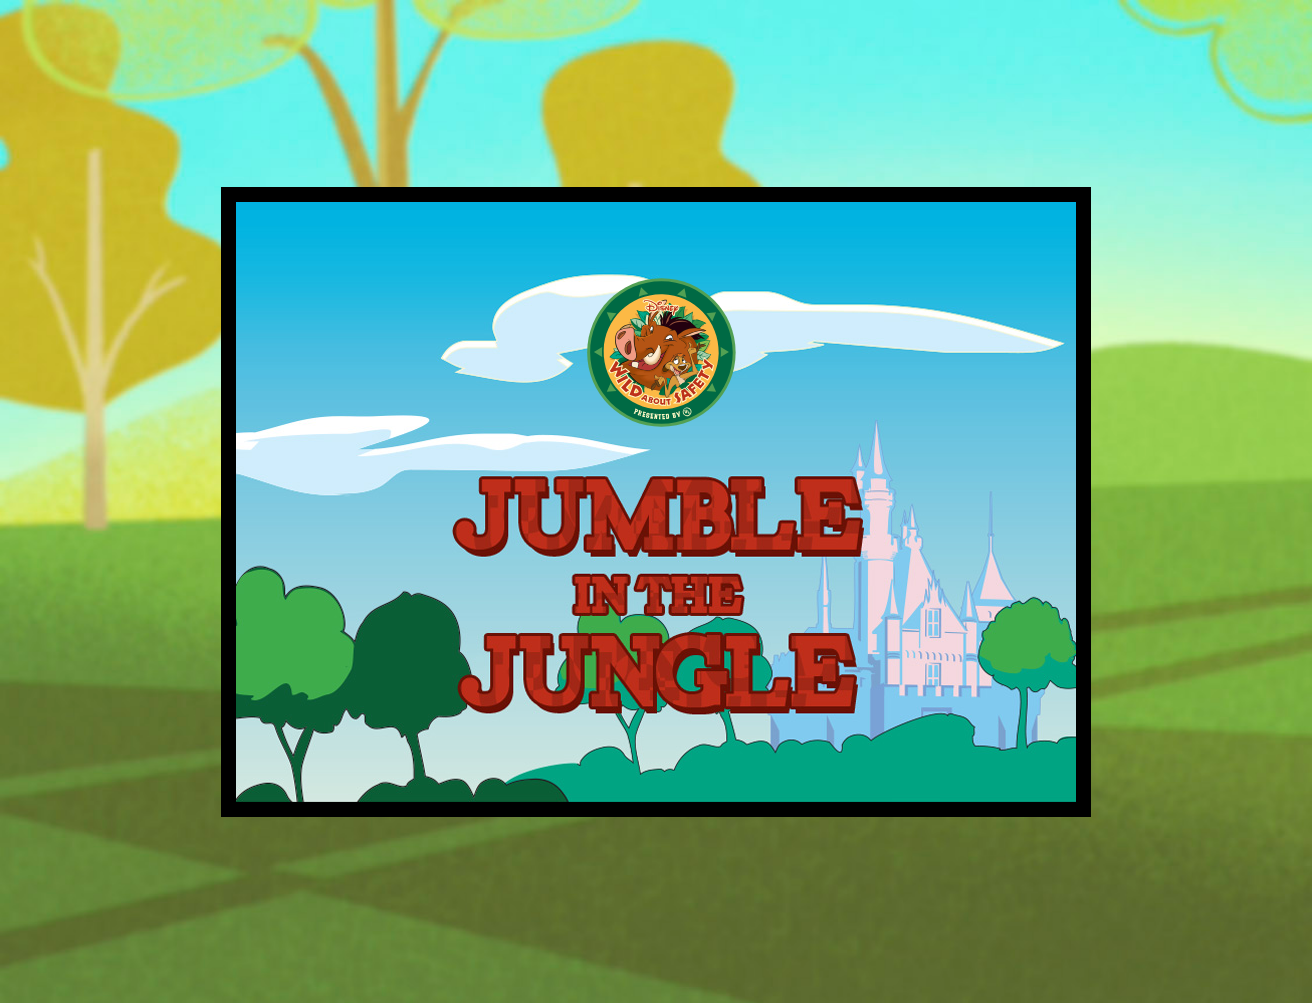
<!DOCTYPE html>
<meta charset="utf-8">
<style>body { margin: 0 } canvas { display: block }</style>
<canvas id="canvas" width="1312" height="1003"></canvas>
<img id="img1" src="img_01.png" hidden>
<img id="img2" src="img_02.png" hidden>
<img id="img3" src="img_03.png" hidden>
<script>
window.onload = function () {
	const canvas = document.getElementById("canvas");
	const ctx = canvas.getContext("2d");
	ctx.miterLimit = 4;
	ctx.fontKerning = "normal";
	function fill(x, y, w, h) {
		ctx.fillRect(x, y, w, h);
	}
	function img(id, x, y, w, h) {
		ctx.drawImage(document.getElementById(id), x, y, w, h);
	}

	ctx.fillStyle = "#FFFFFF";
	fill(0, 0, 1312, 1003);
	img("img1", 0, 0, 1312, 1003);
	img("img2", 236, 202, 840, 600);
	ctx.strokeStyle = "#000000";
	ctx.lineWidth = 15;
	ctx.strokeRect(228.5, 194.5, 855, 615);
	img("img3", 587, 278, 149, 149);
};
</script>
